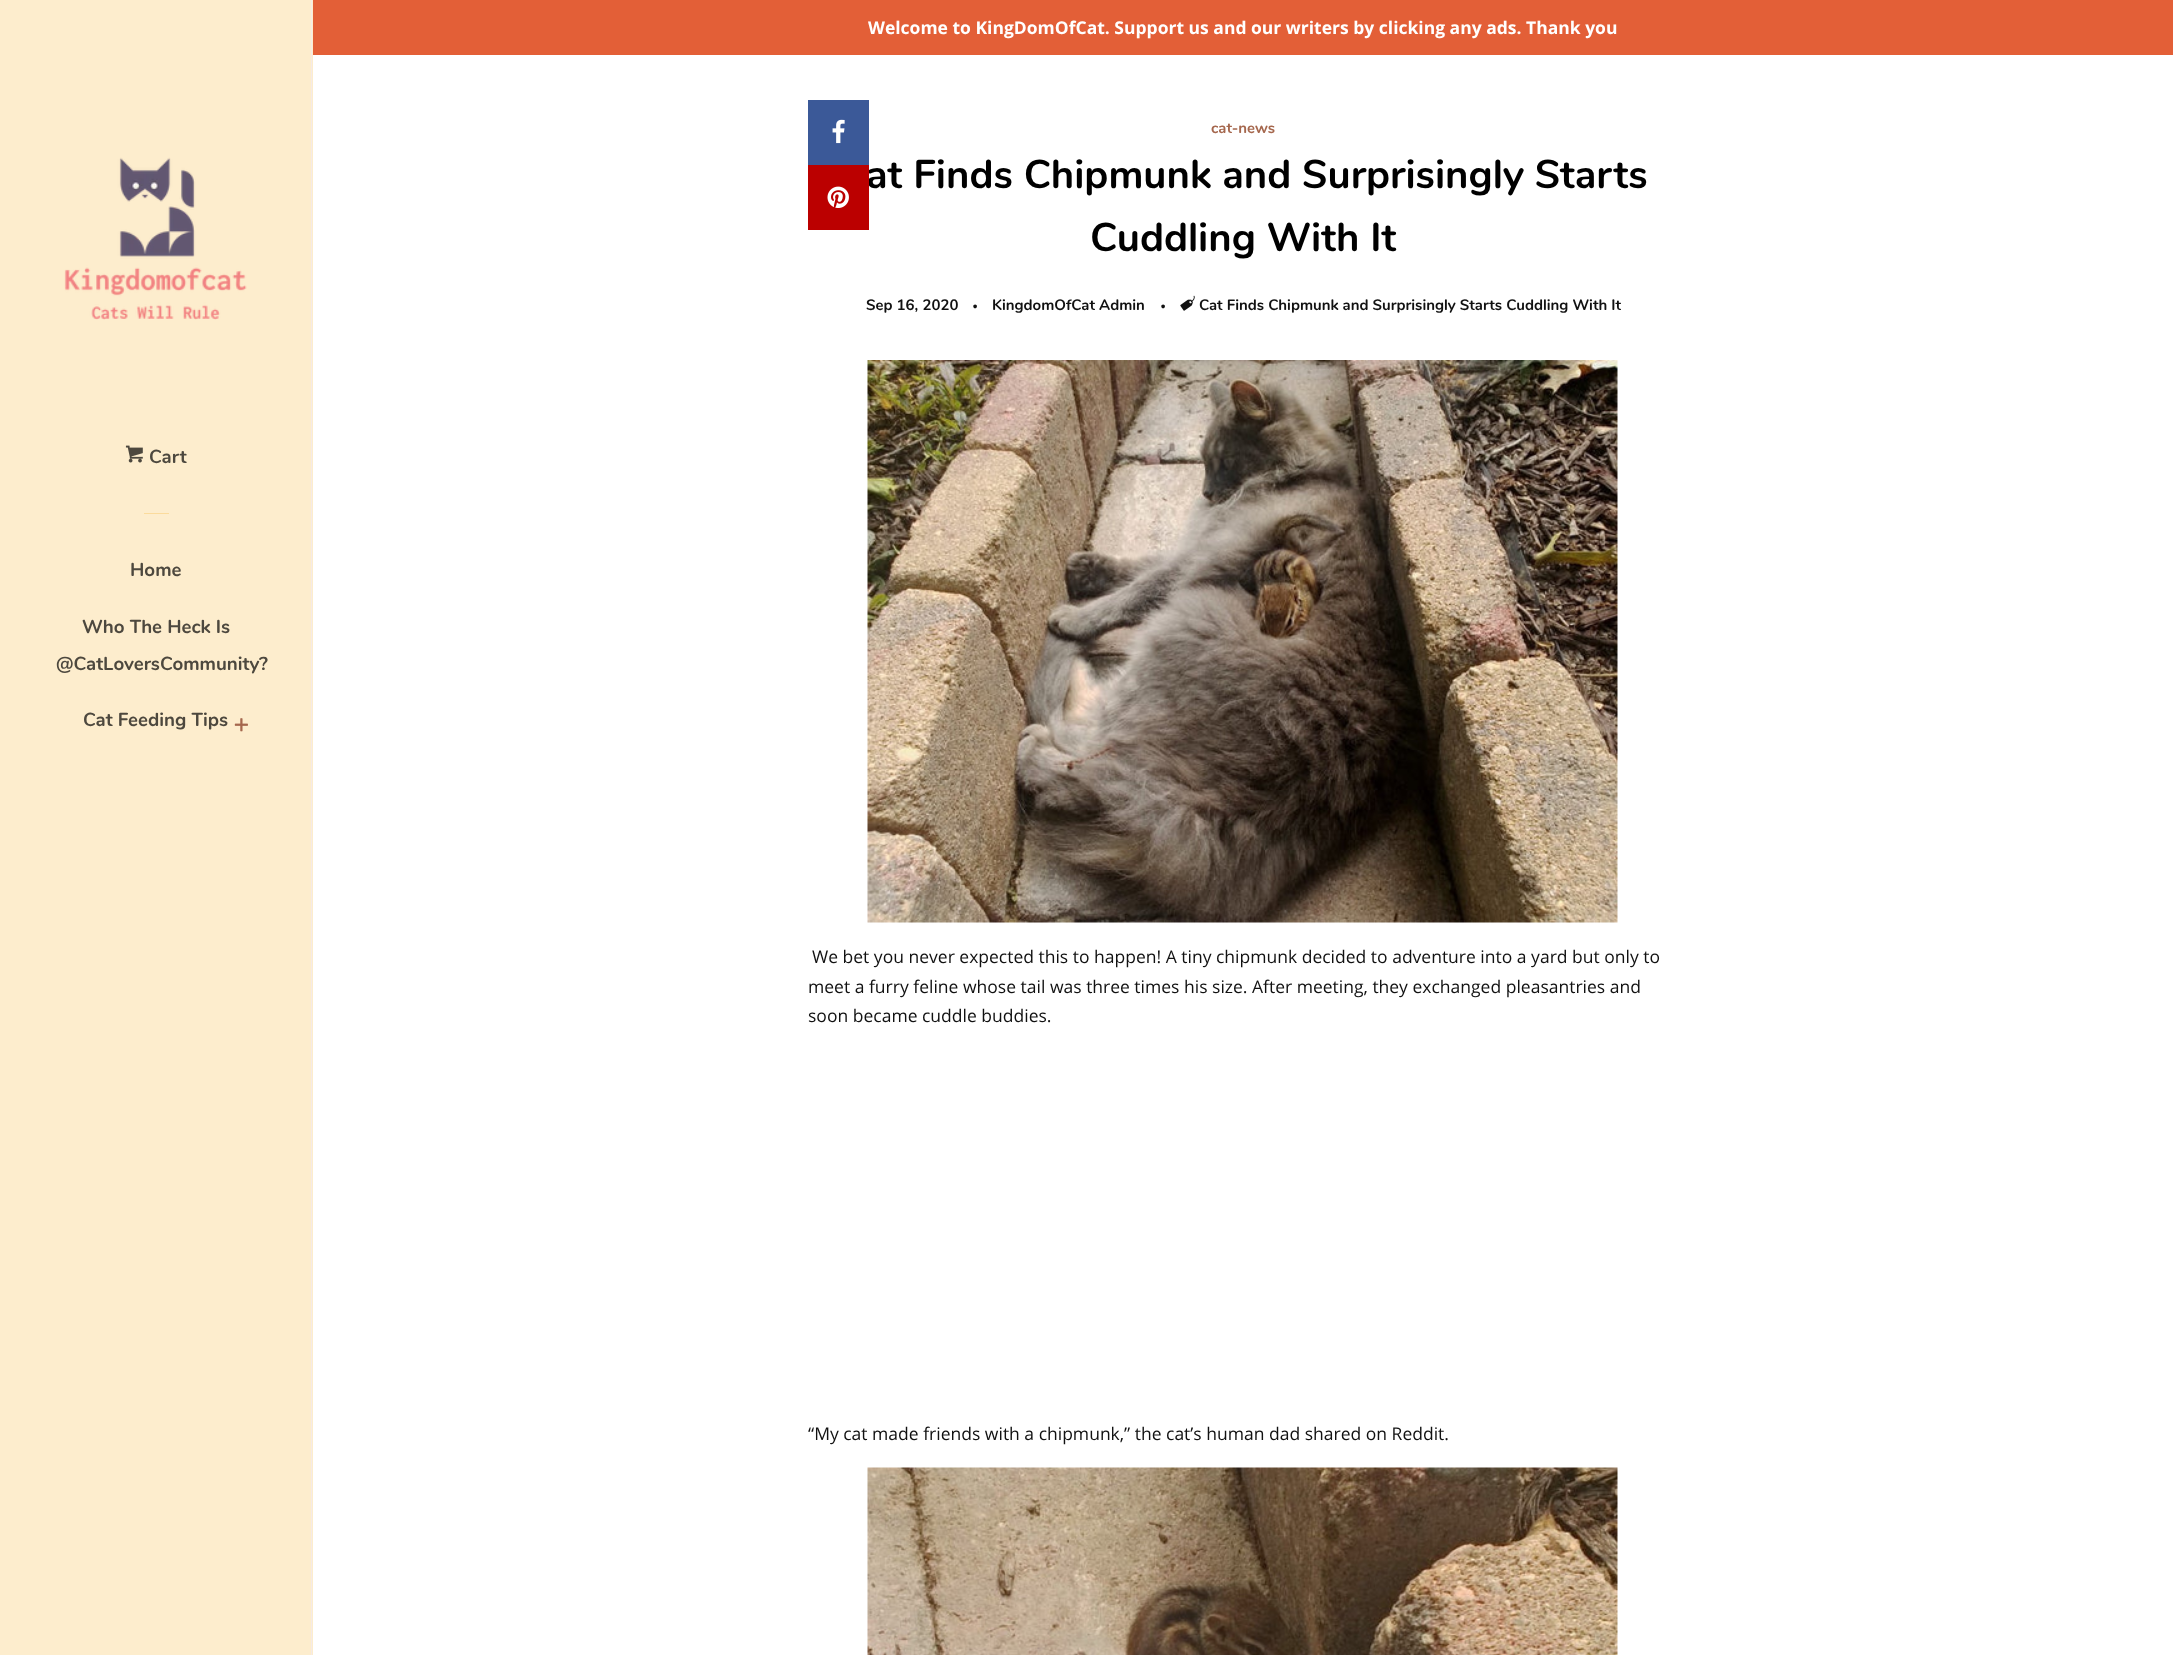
<!DOCTYPE html>
<meta charset="utf-8">
<style>body { margin: 0 } canvas { display: block }</style>
<canvas id="canvas" width="2173" height="1655"></canvas>
<img id="img1" src="img_01.png" hidden>
<img id="img2" src="img_02.png" hidden>
<img id="img3" src="img_03.png" hidden>
<img id="img4" src="img_06.png" hidden>
<img id="img5" src="img_07.png" hidden>
<img id="img6" src="img_08.png" hidden>
<img id="img7" src="img_05.png" hidden>
<img id="img8" src="img_04.png" hidden>
<script>
window.onload = function () {
	const canvas = document.getElementById("canvas");
	const ctx = canvas.getContext("2d");
	ctx.miterLimit = 4;
	ctx.fontKerning = "normal";
	function txt(s, x, y) {
		ctx.fillText(s, x, y);
	}
	function fill(x, y, w, h) {
		ctx.fillRect(x, y, w, h);
	}
	function img(id, x, y, w, h) {
		ctx.drawImage(document.getElementById(id), x, y, w, h);
	}

	ctx.fillStyle = "#FDEDCD";
	fill(0, 0, 2173, 1655);
	ctx.fillStyle = "#F5EAE7";
	fill(311, 0, 1, 1655);
	img("img1", 64, 157, 183, 163);
	img("img2", 125, 445, 18, 18);
	ctx.fillStyle = "#FBDB9C";
	fill(144, 513, 25, 1);
	img("img3", 234, 718, 14, 14);
	ctx.fillStyle = "#FFFFFF";
	fill(313, 55, 1860, 1600);
	ctx.fillStyle = "#E35F37";
	fill(313, 0, 1860, 55);
	img("img4", 1180, 295, 15, 16);
	img("img5", 867, 360, 751, 563);
	img("img6", 867, 1467, 751, 188);
	ctx.font = "bold 18.75px Nunito";
	ctx.fillStyle = "#4D483E";
	txt("Cart", 149, 463);
	txt("Home", 130, 576);
	txt("Who The Heck Is", 82, 633);
	txt("@CatLoversCommunity?", 56, 670);
	txt("Cat Feeding Tips", 83, 726);
	ctx.font = "bold 17.5px Open Sans";
	ctx.fillStyle = "#FFFFFF";
	txt("Welcome to KingDomOfCat. Support us and our writers by clicking any ads. Thank you", 868, 34);
	ctx.font = "bold 15px Nunito";
	ctx.fillStyle = "#A5674D";
	txt("cat-news", 1211, 133);
	ctx.font = "bold 40px Nunito";
	ctx.fillStyle = "#000000";
	txt("at Finds Chipmunk and Surprisingly Starts", 866, 188);
	ctx.fillStyle = "#BB0000";
	fill(808, 165, 61, 65);
	img("img7", 827, 186, 22, 22);
	ctx.fillStyle = "#3B5998";
	fill(808, 100, 61, 65);
	img("img8", 832, 119, 13, 25);
	ctx.fillStyle = "#000000";
	txt("Cuddling With It", 1090, 251);
	ctx.font = "bold 15px Nunito";
	ctx.fillStyle = "#111111";
	txt("Sep 16, 2020", 866, 310);
	ctx.font = "bold 25px Nunito";
	txt("·", 972, 313);
	ctx.font = "bold 15px Nunito";
	txt("KingdomOfCat Admin", 992, 310);
	ctx.font = "bold 25px Nunito";
	txt("·", 1160, 313);
	ctx.font = "bold 15px Nunito";
	txt("Cat Finds Chipmunk and Surprisingly Starts Cuddling With It", 1199, 310);
	ctx.font = "17.5px Open Sans";
	txt("We bet you never expected this to happen! A tiny chipmunk decided to adventure into a yard but only to", 812, 963);
	txt("meet a furry feline whose tail was three times his size. After meeting, they exchanged pleasantries and", 808, 993);
	txt("soon became cuddle buddies.", 808, 1022);
	txt("“My cat made friends with a chipmunk,” the cat’s human dad shared on Reddit.", 808, 1440);
};
</script>
